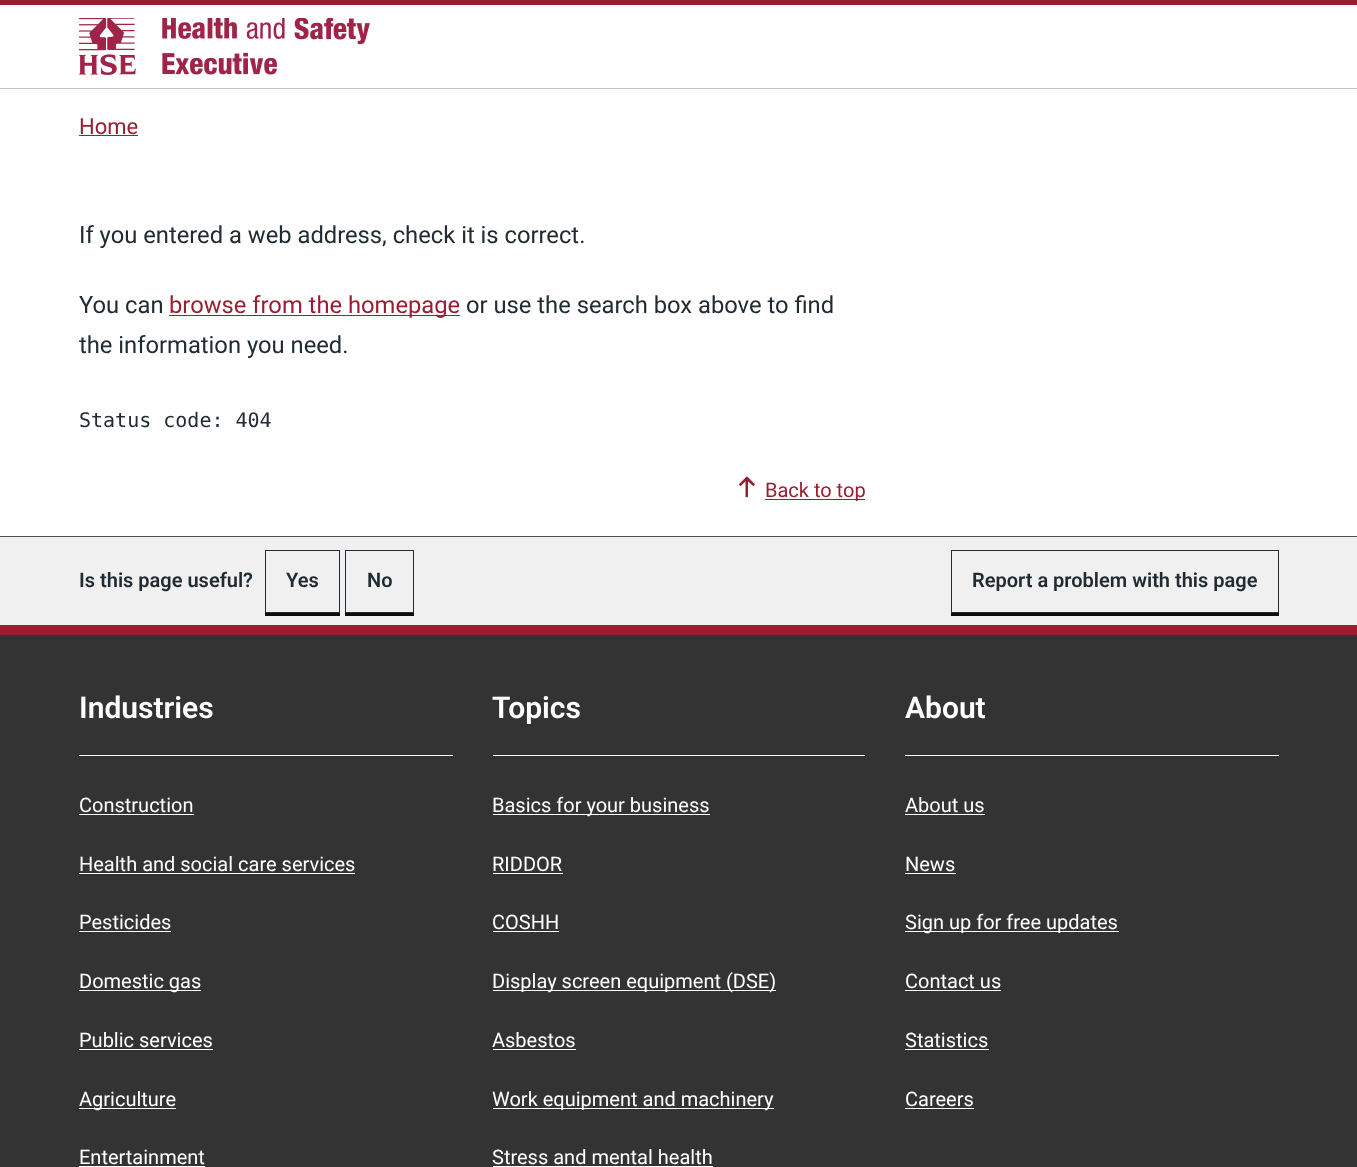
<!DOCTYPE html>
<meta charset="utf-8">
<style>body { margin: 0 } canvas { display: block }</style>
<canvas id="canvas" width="1357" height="1167"></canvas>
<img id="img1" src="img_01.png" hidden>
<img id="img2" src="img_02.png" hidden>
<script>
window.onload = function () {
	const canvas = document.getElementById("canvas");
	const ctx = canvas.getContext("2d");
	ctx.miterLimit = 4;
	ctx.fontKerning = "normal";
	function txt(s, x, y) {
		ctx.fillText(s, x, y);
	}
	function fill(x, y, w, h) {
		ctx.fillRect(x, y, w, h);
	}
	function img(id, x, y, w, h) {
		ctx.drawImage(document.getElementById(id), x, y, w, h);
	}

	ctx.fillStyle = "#FFFFFF";
	fill(0, 0, 1357, 1167);
	ctx.fillStyle = "#981E32";
	fill(0, 0, 1357, 5);
	ctx.fillStyle = "#C2C2C2";
	fill(0, 88, 1357, 1);
	img("img1", 79, 18, 291, 57);
	ctx.fillStyle = "#981E32";
	fill(79, 135, 59, 1);
	fill(169, 315, 291, 1);
	img("img2", 739, 476, 16, 22);
	fill(765, 499, 100, 1);
	ctx.fillStyle = "#F0F0F0";
	fill(0, 537, 1357, 88);
	ctx.fillStyle = "#4E4E4E";
	fill(0, 536, 1357, 1);
	ctx.fillStyle = "#0B0C0C";
	fill(265, 613, 75, 3);
	ctx.strokeStyle = "#212B32";
	ctx.strokeRect(265.5, 550.5, 74, 62);
	ctx.beginPath();
	ctx.moveTo(345, 612);
	ctx.lineTo(345, 616);
	ctx.lineTo(414, 616);
	ctx.lineTo(414, 554);
	ctx.lineTo(414, 612);
	ctx.closePath();
	ctx.fill();
	ctx.strokeRect(345.5, 550.5, 68, 62);
	ctx.beginPath();
	ctx.moveTo(951, 554);
	ctx.lineTo(951, 616);
	ctx.lineTo(1279, 616);
	ctx.lineTo(1279, 554);
	ctx.lineTo(1279, 612);
	ctx.lineTo(951, 612);
	ctx.closePath();
	ctx.fill();
	ctx.strokeRect(951.5, 550.5, 327, 62);
	ctx.fillStyle = "#333333";
	fill(0, 635, 1357, 532);
	ctx.fillStyle = "#981E32";
	fill(0, 625, 1357, 10);
	ctx.fillStyle = "#FFFFFF";
	fill(79, 755, 374, 1);
	fill(79, 814, 115, 1);
	fill(79, 873, 276, 1);
	fill(79, 931, 92, 1);
	fill(79, 990, 122, 1);
	fill(79, 1049, 134, 1);
	fill(79, 1108, 97, 1);
	fill(79, 1166, 126, 1);
	fill(493, 755, 372, 1);
	fill(493, 814, 217, 1);
	fill(493, 873, 70, 1);
	fill(493, 931, 66, 1);
	fill(493, 990, 283, 1);
	fill(493, 1049, 83, 1);
	fill(493, 1108, 281, 1);
	fill(493, 1166, 220, 1);
	fill(905, 755, 374, 1);
	fill(905, 814, 80, 1);
	fill(905, 873, 51, 1);
	fill(905, 931, 214, 1);
	fill(905, 990, 96, 1);
	fill(905, 1049, 84, 1);
	fill(905, 1108, 69, 1);
	ctx.font = "22px Roboto";
	ctx.fillStyle = "#981E32";
	txt("Home", 79, 134);
	ctx.font = "23.75px Roboto";
	ctx.fillStyle = "#212B32";
	txt("If you entered a web address, check it is correct.", 79, 243);
	txt("You can", 79, 313);
	ctx.fillStyle = "#981E32";
	txt("browse from the homepage", 169, 313);
	ctx.fillStyle = "#212B32";
	txt("or use the search box above to find", 466, 313);
	txt("the information you need.", 79, 353);
	ctx.font = "20px DejaVu Sans Mono";
	txt("Status code: 404", 79, 427);
	ctx.font = "20px Roboto";
	ctx.fillStyle = "#981E32";
	txt("Back to top", 765, 497);
	ctx.font = "600 20px Roboto";
	ctx.fillStyle = "#212B32";
	txt("Is this page useful?", 79, 587);
	txt("Yes", 286, 587);
	txt("No", 367, 587);
	txt("Report a problem with this page", 972, 587);
	ctx.font = "600 30px Roboto";
	ctx.fillStyle = "#FFFFFF";
	txt("Industries", 79, 718);
	ctx.font = "20px Roboto";
	txt("Construction", 79, 812);
	txt("Health and social care services", 79, 871);
	txt("Pesticides", 79, 929);
	txt("Domestic gas", 79, 988);
	txt("Public services", 79, 1047);
	txt("Agriculture", 79, 1106);
	txt("Entertainment", 79, 1164);
	ctx.font = "600 30px Roboto";
	txt("Topics", 492, 718);
	ctx.font = "20px Roboto";
	txt("Basics for your business", 492, 812);
	txt("RIDDOR", 492, 871);
	txt("COSHH", 492, 929);
	txt("Display screen equipment (DSE)", 492, 988);
	txt("Asbestos", 492, 1047);
	txt("Work equipment and machinery", 492, 1106);
	txt("Stress and mental health", 492, 1164);
	ctx.font = "600 30px Roboto";
	txt("About", 905, 718);
	ctx.font = "20px Roboto";
	txt("About us", 905, 812);
	txt("News", 905, 871);
	txt("Sign up for free updates", 905, 929);
	txt("Contact us", 905, 988);
	txt("Statistics", 905, 1047);
	txt("Careers", 905, 1106);
};
</script>
